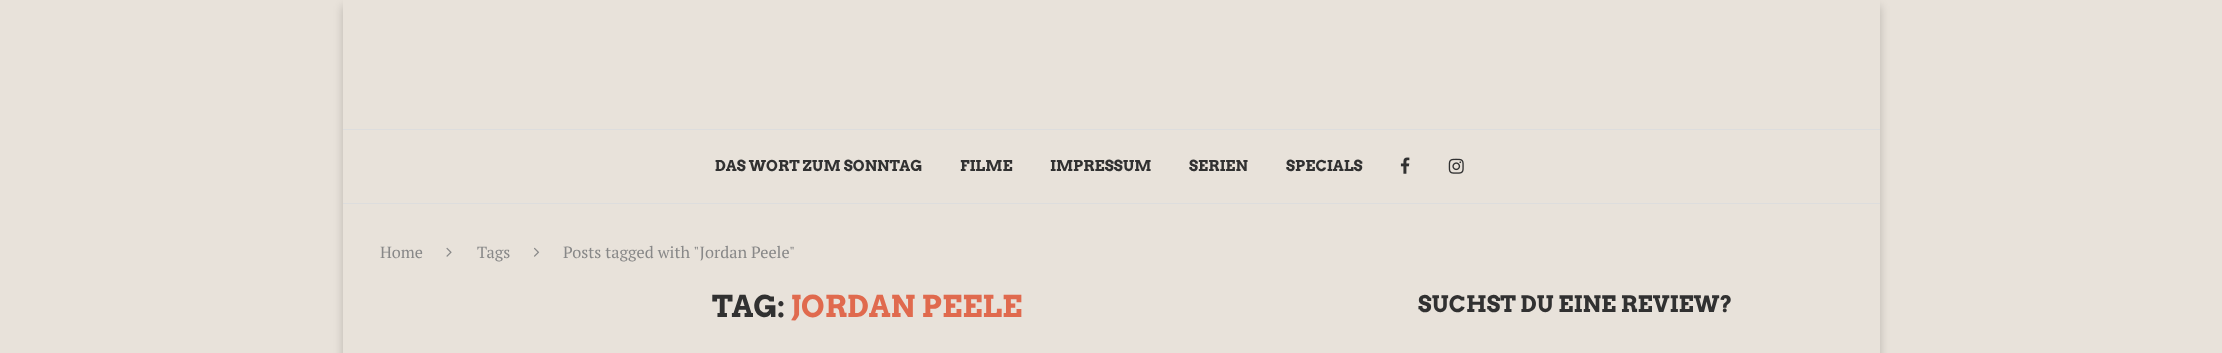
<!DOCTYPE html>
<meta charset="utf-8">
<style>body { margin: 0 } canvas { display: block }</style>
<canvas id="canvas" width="2222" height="353"></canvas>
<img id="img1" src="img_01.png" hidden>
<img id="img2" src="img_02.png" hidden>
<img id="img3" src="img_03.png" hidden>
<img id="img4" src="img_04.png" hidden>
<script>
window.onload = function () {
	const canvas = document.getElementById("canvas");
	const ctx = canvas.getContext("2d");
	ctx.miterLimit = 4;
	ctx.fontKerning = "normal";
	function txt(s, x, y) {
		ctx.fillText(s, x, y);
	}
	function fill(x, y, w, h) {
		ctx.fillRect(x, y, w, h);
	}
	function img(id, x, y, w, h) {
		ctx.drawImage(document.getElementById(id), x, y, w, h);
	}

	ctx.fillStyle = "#E8E2DA";
	fill(0, 0, 2222, 353);
	ctx.save();
	ctx.beginPath();
	ctx.moveTo(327, 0);
	ctx.lineTo(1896, 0);
	ctx.lineTo(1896, 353);
	ctx.lineTo(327, 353);
	ctx.closePath();
	ctx.moveTo(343, 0);
	ctx.lineTo(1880, 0);
	ctx.lineTo(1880, 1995);
	ctx.lineTo(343, 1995);
	ctx.closePath();
	ctx.clip("evenodd");
	ctx.fillStyle = "rgba(0, 0, 0, 0.2)";
	ctx.filter = "blur(5px)";
	ctx.beginPath();
	ctx.rect(343, 6, 1537, 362);
	ctx.fill();
	ctx.filter = "none";
	ctx.restore();
	ctx.fillStyle = "#DDDDDD";
	fill(343, 129, 1537, 1);
	fill(343, 203, 1537, 1);
	img("img1", 1400, 157, 10, 17);
	img("img2", 1448, 158, 16, 16);
	img("img3", 446, 247, 6, 10);
	img("img4", 534, 247, 6, 10);
	ctx.font = "bold 15px Arvo";
	ctx.fillStyle = "#313131";
	txt("DAS WORT ZUM SONNTAG", 715, 171);
	txt("FILME", 960, 171);
	txt("IMPRESSUM", 1050, 171);
	txt("SERIEN", 1189, 171);
	txt("SPECIALS", 1286, 171);
	ctx.font = "16.25px PT Serif";
	ctx.fillStyle = "#888888";
	txt("Home", 380, 258);
	txt("Tags", 477, 258);
	txt("Posts tagged with \"Jordan Peele\"", 563, 258);
	ctx.font = "bold 30px Arvo";
	ctx.fillStyle = "#313131";
	txt("TAG:", 712, 317);
	ctx.fillStyle = "#E06A4E";
	txt("JORDAN PEELE", 791, 317);
	ctx.font = "bold 22.5px Arvo";
	ctx.fillStyle = "#313131";
	txt("SUCHST DU EINE REVIEW?", 1418, 312);
};
</script>
